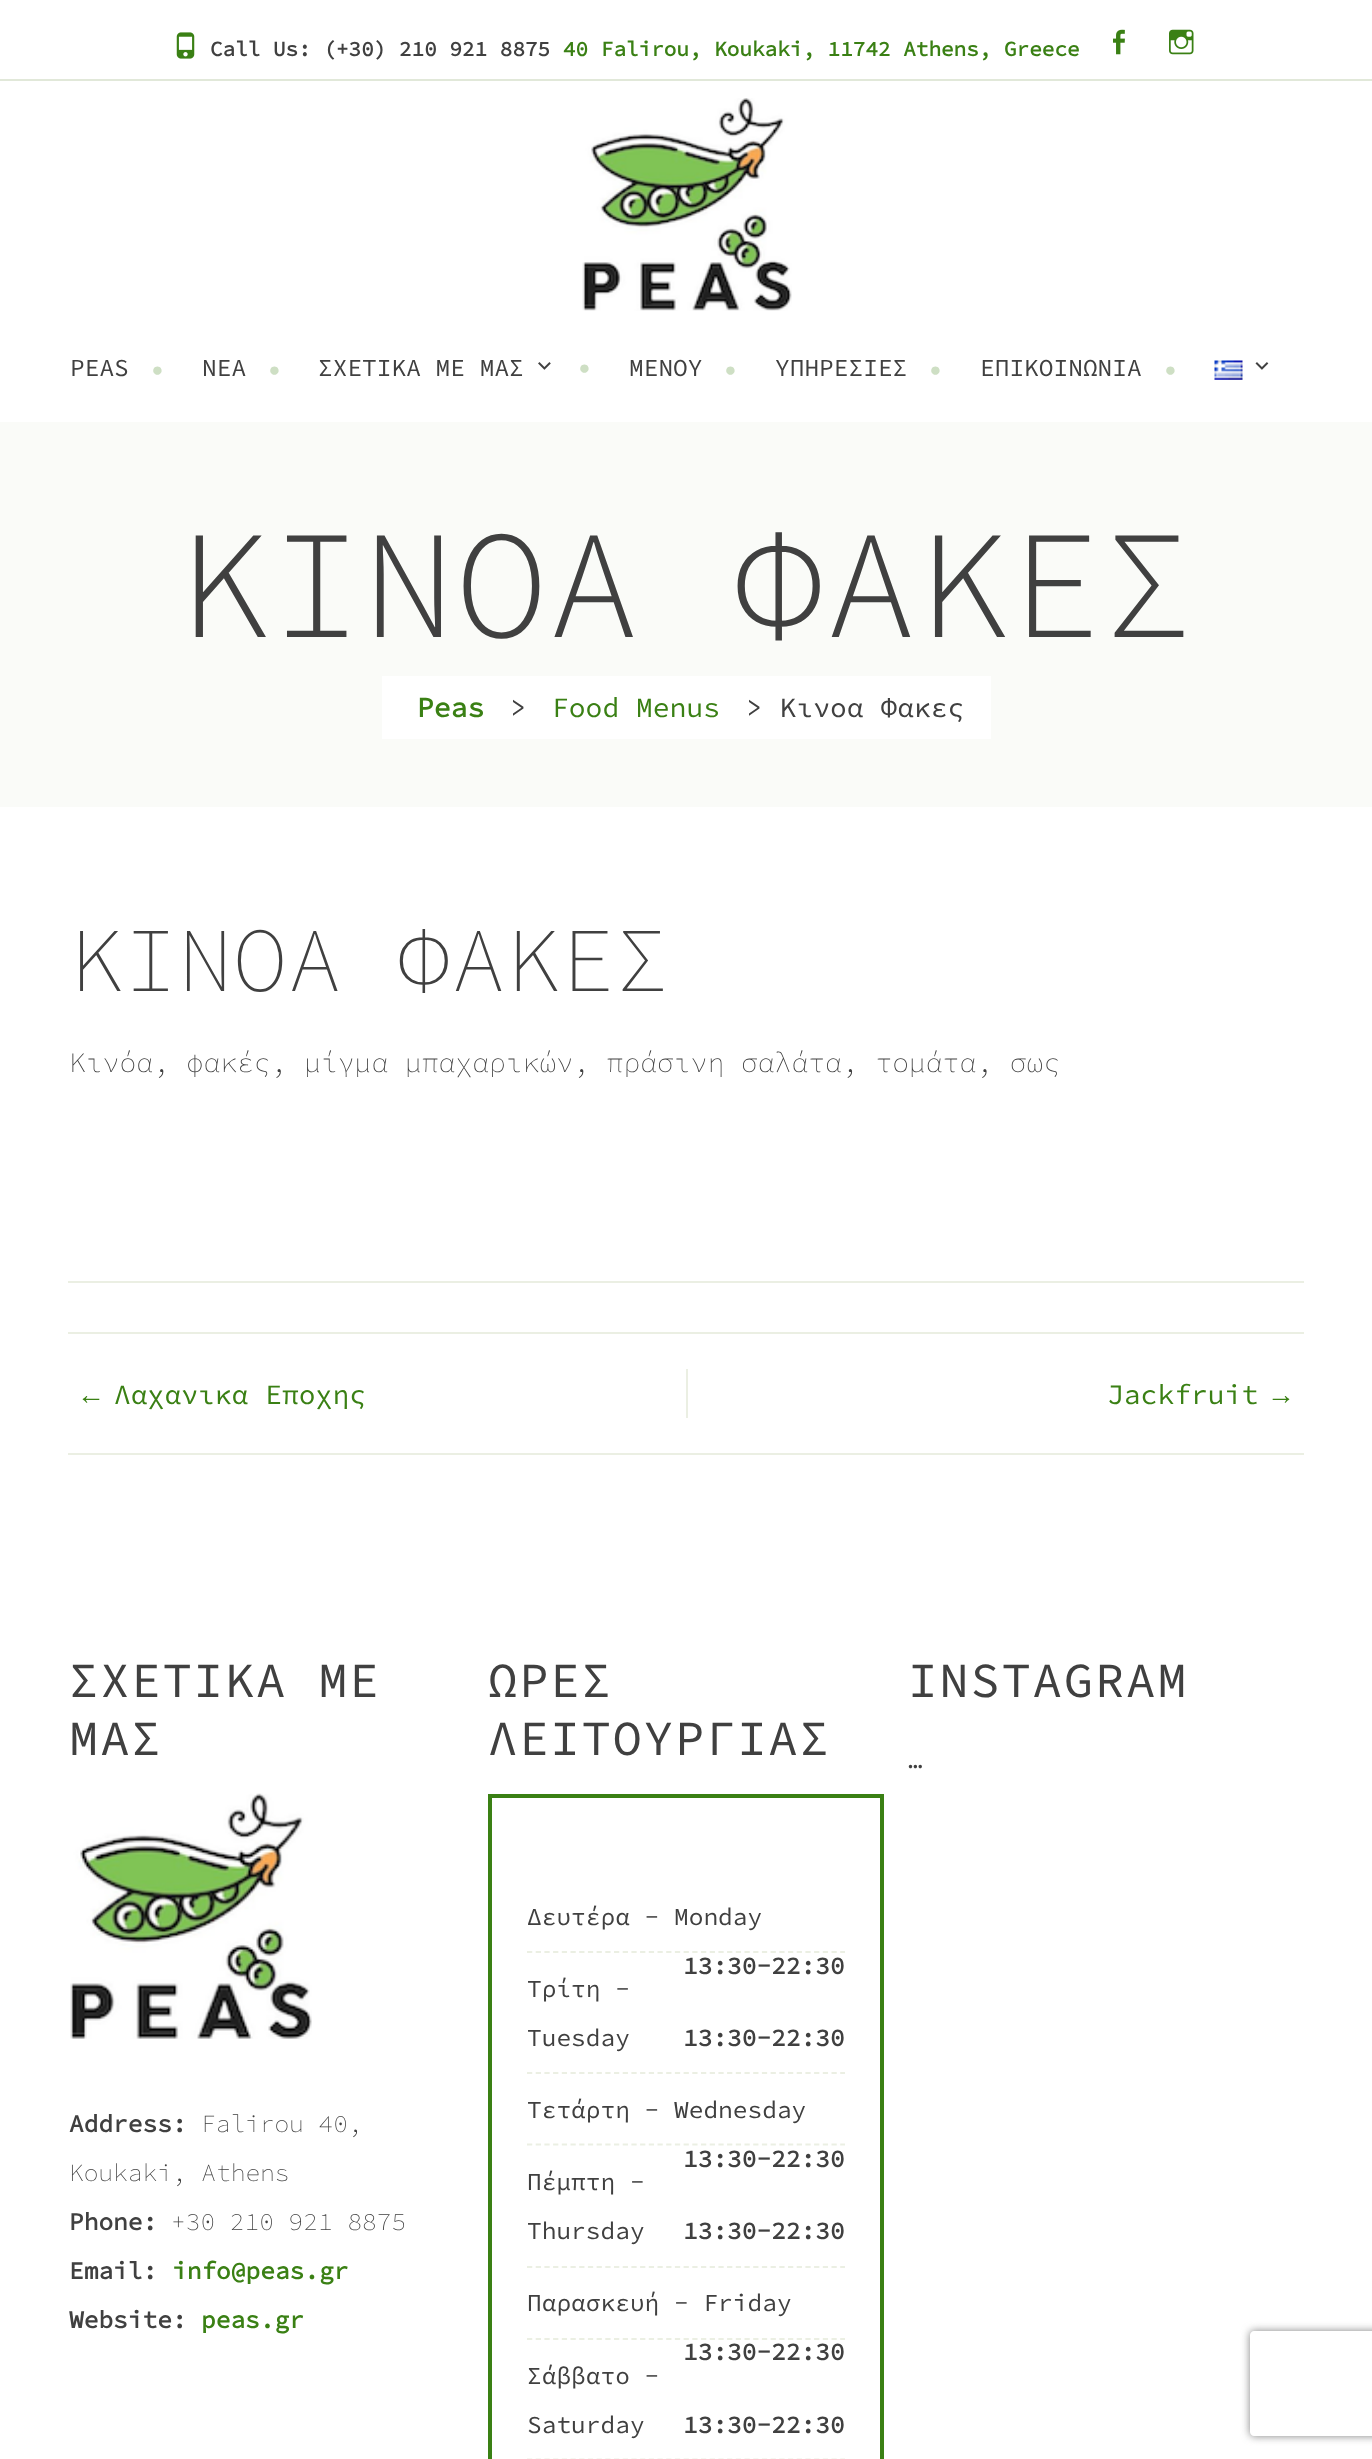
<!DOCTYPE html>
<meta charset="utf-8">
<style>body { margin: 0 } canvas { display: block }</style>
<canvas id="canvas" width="1372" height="2459"></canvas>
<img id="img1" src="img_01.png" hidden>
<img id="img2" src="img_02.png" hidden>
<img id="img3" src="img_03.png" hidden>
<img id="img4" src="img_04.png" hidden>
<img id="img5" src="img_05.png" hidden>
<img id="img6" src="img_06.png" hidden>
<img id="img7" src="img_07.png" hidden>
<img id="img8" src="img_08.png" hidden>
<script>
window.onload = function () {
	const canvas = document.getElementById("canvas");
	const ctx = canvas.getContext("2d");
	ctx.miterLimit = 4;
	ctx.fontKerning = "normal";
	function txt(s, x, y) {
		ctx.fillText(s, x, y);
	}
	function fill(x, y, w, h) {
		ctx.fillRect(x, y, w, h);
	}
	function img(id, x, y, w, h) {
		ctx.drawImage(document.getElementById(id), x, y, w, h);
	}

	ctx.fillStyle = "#FFFFFF";
	fill(0, 0, 1372, 2459);
	ctx.fillStyle = "#E1E8D9";
	fill(0, 79, 1372, 2);
	img("img1", 176, 32, 19, 27);
	img("img2", 1113, 29, 12, 26);
	img("img3", 1169, 29, 25, 26);
	img("img4", 582, 98, 210, 213);
	img("img5", 538, 362, 13, 8);
	img("img6", 1214, 360, 29, 20);
	img("img7", 1255, 362, 14, 8);
	ctx.fillStyle = "#FAFBF8";
	fill(0, 422, 1372, 385);
	ctx.fillStyle = "#FFFFFF";
	fill(382, 676, 609, 63);
	ctx.fillStyle = "#EBEFE3";
	fill(68, 1281, 1236, 2);
	fill(68, 1332, 1236, 2);
	fill(68, 1453, 1236, 2);
	fill(686, 1369, 2, 49);
	img("img8", 70, 1793, 242, 246);
	ctx.strokeStyle = "#3A8014";
	ctx.lineWidth = 4;
	ctx.strokeRect(490, 1796, 392, 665);
	ctx.beginPath();
	ctx.moveTo(527, 1952);
	ctx.lineTo(845, 1952);
	ctx.strokeStyle = "#EBEFE3";
	ctx.lineWidth = 1.8;
	ctx.setLineDash([5.25, 3.45]);
	ctx.stroke();
	ctx.beginPath();
	ctx.moveTo(527, 2073);
	ctx.lineTo(845, 2073);
	ctx.stroke();
	ctx.beginPath();
	ctx.moveTo(527, 2144.5);
	ctx.lineTo(845, 2144.5);
	ctx.stroke();
	ctx.beginPath();
	ctx.moveTo(527, 2267);
	ctx.lineTo(845, 2267);
	ctx.stroke();
	ctx.beginPath();
	ctx.moveTo(527, 2339);
	ctx.lineTo(845, 2339);
	ctx.stroke();
	ctx.beginPath();
	ctx.moveTo(527, 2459.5);
	ctx.lineTo(845, 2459.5);
	ctx.stroke();
	ctx.save();
	ctx.beginPath();
	ctx.moveTo(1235, 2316);
	ctx.lineTo(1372, 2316);
	ctx.lineTo(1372, 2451);
	ctx.lineTo(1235, 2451);
	ctx.closePath();
	ctx.moveTo(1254, 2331);
	ctx.lineTo(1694, 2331);
	ctx.bezierCurveTo(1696, 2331, 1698, 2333, 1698, 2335);
	ctx.lineTo(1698, 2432);
	ctx.bezierCurveTo(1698, 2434, 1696, 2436, 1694, 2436);
	ctx.lineTo(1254, 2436);
	ctx.bezierCurveTo(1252, 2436, 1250, 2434, 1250, 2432);
	ctx.lineTo(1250, 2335);
	ctx.bezierCurveTo(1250, 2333, 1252, 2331, 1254, 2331);
	ctx.closePath();
	ctx.clip("evenodd");
	ctx.fillStyle = "#808080";
	ctx.filter = "blur(4.5px)";
	ctx.beginPath();
	ctx.roundRect(1250, 2331, 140, 105, 4);
	ctx.fill();
	ctx.filter = "none";
	ctx.restore();
	ctx.font = "bold 21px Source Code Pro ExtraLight";
	ctx.fillStyle = "#404040";
	txt("Call Us: (+30) 210 921 8875", 210, 56);
	ctx.fillStyle = "#3A8014";
	txt("40 Falirou, Koukaki, 11742 Athens, Greece", 563, 56);
	ctx.font = "200 24.5px Source Code Pro ExtraLight";
	ctx.fillStyle = "#404040";
	txt("PEAS", 70, 376);
	ctx.font = "200 28px Source Code Pro ExtraLight";
	ctx.fillStyle = "#CEDFC4";
	txt("•", 149, 378);
	ctx.font = "200 24.5px Source Code Pro ExtraLight";
	ctx.fillStyle = "#404040";
	txt("ΝΕΑ", 202, 376);
	ctx.font = "200 28px Source Code Pro ExtraLight";
	ctx.fillStyle = "#CEDFC4";
	txt("•", 266, 378);
	ctx.font = "200 24.5px Source Code Pro ExtraLight";
	ctx.fillStyle = "#404040";
	txt("ΣΧΕΤΙΚΑ ΜΕ ΜΑΣ", 318, 376);
	ctx.font = "200 28px Source Code Pro ExtraLight";
	ctx.fillStyle = "#CEDFC4";
	txt("•", 576, 376);
	ctx.font = "200 24.5px Source Code Pro ExtraLight";
	ctx.fillStyle = "#404040";
	txt("ΜΕΝΟΥ", 629, 376);
	ctx.font = "200 28px Source Code Pro ExtraLight";
	ctx.fillStyle = "#CEDFC4";
	txt("•", 722, 378);
	ctx.font = "200 24.5px Source Code Pro ExtraLight";
	ctx.fillStyle = "#404040";
	txt("ΥΠΗΡΕΣΙΕΣ", 775, 376);
	ctx.font = "200 28px Source Code Pro ExtraLight";
	ctx.fillStyle = "#CEDFC4";
	txt("•", 927, 378);
	ctx.font = "200 24.5px Source Code Pro ExtraLight";
	ctx.fillStyle = "#404040";
	txt("ΕΠΙΚΟΙΝΩΝΙΑ", 980, 376);
	ctx.font = "200 28px Source Code Pro ExtraLight";
	ctx.fillStyle = "#CEDFC4";
	txt("•", 1162, 378);
	ctx.font = "300 154px Source Code Pro ExtraLight";
	ctx.fillStyle = "#404040";
	txt("ΚΙΝΟΑ ΦΑΚΕΣ", 178, 637);
	ctx.font = "bold 28px Source Code Pro ExtraLight";
	ctx.fillStyle = "#3A8014";
	txt("Peas", 417, 717);
	ctx.font = "200 28px Source Code Pro ExtraLight";
	ctx.fillStyle = "#404040";
	txt(">", 510, 717);
	ctx.fillStyle = "#3A8014";
	txt("Food Menus", 552, 717);
	ctx.fillStyle = "#404040";
	txt("> Κινοα Φακες", 746, 717);
	ctx.font = "200 91px 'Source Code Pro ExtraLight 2'";
	txt("ΚΙΝΟΑ ΦΑΚΕΣ", 69, 991);
	ctx.font = "200 28px 'Source Code Pro ExtraLight 2'";
	txt("Κινόα, φακές, μίγμα μπαχαρικών, πράσινη σαλάτα, τομάτα, σως", 69, 1072);
	ctx.font = "28px Liberation Serif";
	ctx.fillStyle = "#3A8014";
	txt("←", 77, 1404);
	ctx.font = "200 28px Source Code Pro ExtraLight";
	txt("Λαχανικα Εποχης", 114, 1404);
	txt("Jackfruit", 1107, 1404);
	ctx.font = "28px Liberation Serif";
	txt("→", 1267, 1404);
	ctx.letterSpacing = "1.75px";
	ctx.font = "200 49px Source Code Pro ExtraLight";
	ctx.fillStyle = "#404040";
	txt("ΣΧΕΤΙΚΑ ΜΕ", 69, 1697);
	txt("ΜΑΣ", 69, 1755);
	ctx.letterSpacing = "0px";
	ctx.font = "bold 24.5px Source Code Pro ExtraLight";
	txt("Address:", 69, 2132);
	ctx.font = "200 24.5px 'Source Code Pro ExtraLight 2'";
	txt("Falirou 40,", 201, 2132);
	txt("Koukaki, Athens", 69, 2181);
	ctx.font = "bold 24.5px Source Code Pro ExtraLight";
	txt("Phone:", 69, 2230);
	ctx.font = "200 24.5px 'Source Code Pro ExtraLight 2'";
	txt("+30 210 921 8875", 171, 2230);
	ctx.font = "bold 24.5px Source Code Pro ExtraLight";
	txt("Email:", 69, 2279);
	ctx.fillStyle = "#3A8014";
	txt("info@peas.gr", 172, 2279);
	ctx.fillStyle = "#404040";
	txt("Website:", 69, 2328);
	ctx.fillStyle = "#3A8014";
	txt("peas.gr", 201, 2328);
	ctx.letterSpacing = "1.75px";
	ctx.font = "200 49px Source Code Pro ExtraLight";
	ctx.fillStyle = "#404040";
	txt("ΩΡΕΣ", 488, 1697);
	txt("ΛΕΙΤΟΥΡΓΙΑΣ", 488, 1755);
	ctx.letterSpacing = "0px";
	ctx.font = "200 24.5px Source Code Pro ExtraLight";
	txt("Δευτέρα - Monday", 527, 1925);
	ctx.font = "bold 24.5px Source Code Pro ExtraLight";
	txt("13:30-22:30", 683, 1974);
	ctx.font = "200 24.5px Source Code Pro ExtraLight";
	txt("Τρίτη -", 527, 1997);
	txt("Tuesday", 527, 2046);
	ctx.font = "bold 24.5px Source Code Pro ExtraLight";
	txt("13:30-22:30", 683, 2046);
	ctx.font = "200 24.5px Source Code Pro ExtraLight";
	txt("Τετάρτη - Wednesday", 527, 2118);
	ctx.font = "bold 24.5px Source Code Pro ExtraLight";
	txt("13:30-22:30", 683, 2167);
	ctx.font = "200 24.5px Source Code Pro ExtraLight";
	txt("Πέμπτη -", 527, 2190);
	txt("Thursday", 527, 2239);
	ctx.font = "bold 24.5px Source Code Pro ExtraLight";
	txt("13:30-22:30", 683, 2239);
	ctx.font = "200 24.5px Source Code Pro ExtraLight";
	txt("Παρασκευή - Friday", 527, 2311);
	ctx.font = "bold 24.5px Source Code Pro ExtraLight";
	txt("13:30-22:30", 683, 2360);
	ctx.font = "200 24.5px Source Code Pro ExtraLight";
	txt("Σάββατο -", 527, 2384);
	txt("Saturday", 527, 2433);
	ctx.font = "bold 24.5px Source Code Pro ExtraLight";
	txt("13:30-22:30", 683, 2433);
	ctx.letterSpacing = "1.75px";
	ctx.font = "200 49px Source Code Pro ExtraLight";
	txt("INSTAGRAM", 908, 1697);
	ctx.letterSpacing = "0px";
	ctx.font = "200 24.5px Source Code Pro ExtraLight";
	txt("…", 908, 1768);
};
</script>
